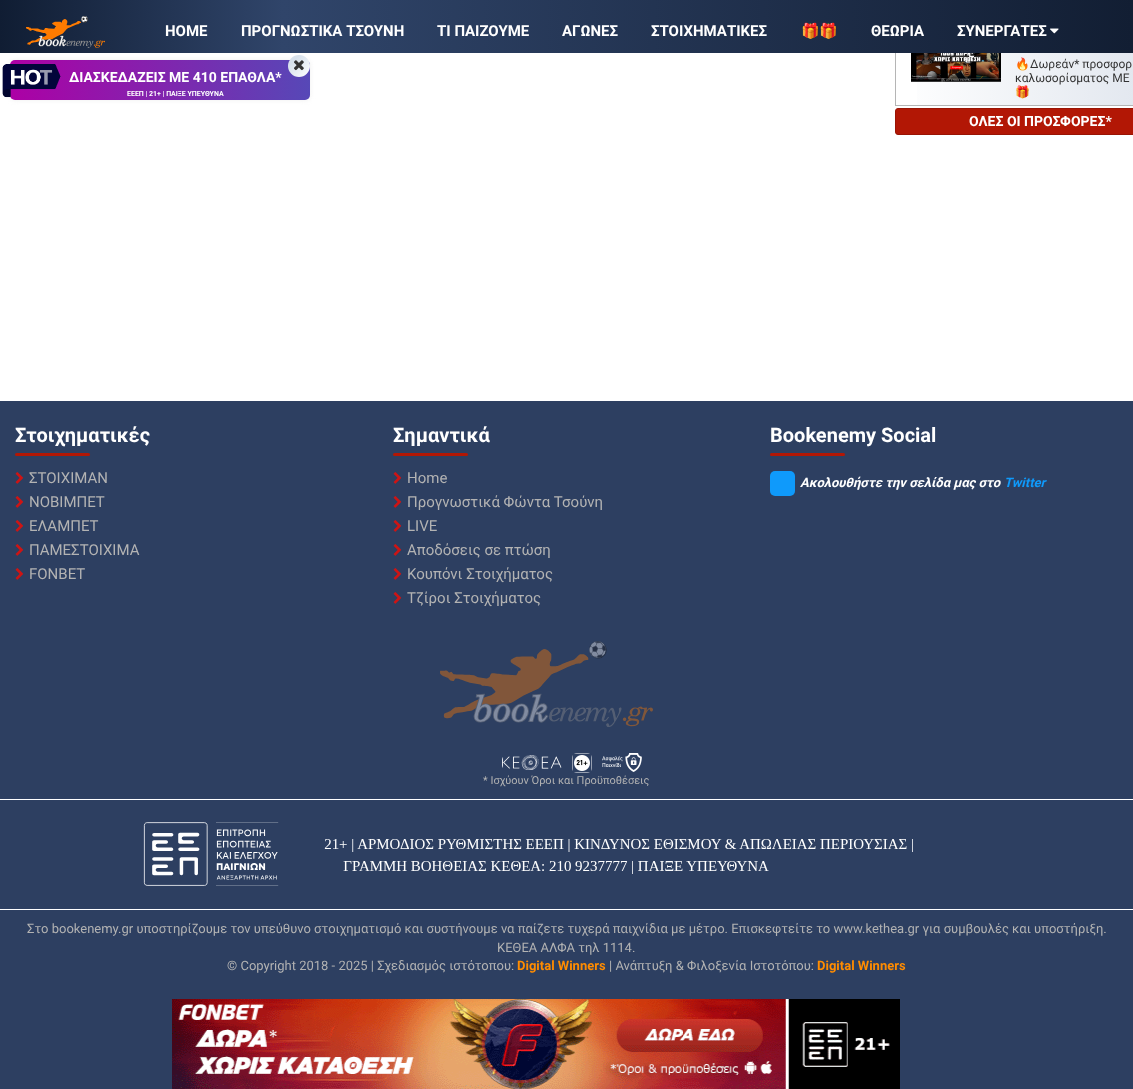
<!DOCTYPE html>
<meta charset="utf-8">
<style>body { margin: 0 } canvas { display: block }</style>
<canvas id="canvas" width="1133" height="1089"></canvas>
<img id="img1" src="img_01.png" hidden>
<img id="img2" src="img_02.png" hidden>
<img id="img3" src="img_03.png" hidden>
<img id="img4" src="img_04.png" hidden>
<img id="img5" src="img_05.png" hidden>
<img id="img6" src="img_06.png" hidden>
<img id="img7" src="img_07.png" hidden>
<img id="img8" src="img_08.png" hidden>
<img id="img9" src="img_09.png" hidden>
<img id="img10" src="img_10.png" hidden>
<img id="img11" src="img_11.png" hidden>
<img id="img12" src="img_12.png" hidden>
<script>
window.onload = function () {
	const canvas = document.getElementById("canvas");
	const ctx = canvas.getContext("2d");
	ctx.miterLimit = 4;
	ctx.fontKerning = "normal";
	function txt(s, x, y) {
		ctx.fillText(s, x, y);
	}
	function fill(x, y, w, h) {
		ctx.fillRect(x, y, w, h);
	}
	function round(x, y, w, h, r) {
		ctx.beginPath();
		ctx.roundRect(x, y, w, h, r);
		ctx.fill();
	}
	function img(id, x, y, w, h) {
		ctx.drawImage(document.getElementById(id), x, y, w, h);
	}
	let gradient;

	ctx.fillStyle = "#FFFFFF";
	fill(0, 0, 1133, 1089);
	gradient = ctx.createLinearGradient(896, 69, 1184, 68);
	gradient.addColorStop(0, "#FFFFFF");
	gradient.addColorStop(1, "#DDE3EC");
	ctx.fillStyle = gradient;
	fill(917, 53, 216, 52);
	ctx.strokeStyle = "#B5B5B5";
	ctx.strokeRect(895.5, 31.5, 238, 74);
	gradient = ctx.createLinearGradient(0, 27, 1133, 26);
	gradient.addColorStop(0, "#101D33");
	gradient.addColorStop(0.25, "#30456A");
	gradient.addColorStop(1, "#121E33");
	ctx.fillStyle = gradient;
	fill(0, 0, 1133, 53);
	img("img1", 26, 16, 79, 32);
	img("img2", 1050, 28, 9, 6);
	ctx.fillStyle = "#EEEEEE";
	ctx.filter = "blur(2.5px)";
	ctx.beginPath();
	ctx.roundRect(10, 60, 300, 40, 5);
	ctx.fill();
	ctx.filter = "none";
	gradient = ctx.createLinearGradient(10, 80, 610, 80);
	gradient.addColorStop(0, "#AD00A5");
	gradient.addColorStop(1, "#0090C9");
	ctx.fillStyle = gradient;
	round(10, 60, 300, 40, 5);
	gradient = ctx.createLinearGradient(310, 77, 288, 55);
	gradient.addColorStop(0, "#FFFFFF");
	gradient.addColorStop(0.74, "#D7E1EC");
	ctx.fillStyle = gradient;
	ctx.beginPath();
	ctx.arc(299, 66, 11, 0, Math.PI * 2);
	ctx.fill();
	img("img3", 294, 60, 10, 11);
	img("img4", 2, 64, 59, 34);
	img("img5", 911, 53, 90, 29);
	ctx.fillStyle = "#B21705";
	ctx.beginPath();
	ctx.roundRect(895.5, 108.5, 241, 26, 2.5);
	ctx.fill();
	ctx.strokeStyle = "#991404";
	ctx.stroke();
	ctx.fillStyle = "#2D3F61";
	fill(0, 401, 1133, 688);
	ctx.fillStyle = "#B21705";
	round(15, 453, 75, 3, 1.5);
	img("img6", 15, 472, 9, 12);
	img("img6", 15, 496, 9, 12);
	img("img6", 15, 520, 9, 12);
	img("img6", 15, 544, 9, 12);
	img("img6", 15, 568, 9, 12);
	round(393, 453, 75, 3, 1.5);
	img("img6", 393, 472, 9, 12);
	img("img6", 393, 496, 9, 12);
	img("img6", 393, 520, 9, 12);
	img("img6", 393, 544, 9, 12);
	img("img6", 393, 568, 9, 12);
	img("img6", 393, 592, 9, 12);
	round(770, 453, 75, 3, 1.5);
	ctx.fillStyle = "#0F9AFB";
	round(770, 471, 25, 25, 5);
	img("img7", 440, 641, 213, 86);
	img("img8", 502, 755, 60, 15);
	img("img9", 572, 753, 20, 20);
	img("img10", 602, 753, 40, 19);
	ctx.fillStyle = "#FFFFFF";
	fill(0, 799, 1133, 1);
	fill(0, 909, 1133, 1);
	img("img11", 143, 822, 770, 64);
	img("img12", 172, 999, 728, 90);
	ctx.font = "bold 15px Roboto";
	txt("HOME", 165, 36);
	txt("ΠΡΟΓΝΩΣΤΙΚΑ ΤΣΟΥΝΗ", 241, 36);
	txt("ΤΙ ΠΑΙΖΟΥΜΕ", 437, 36);
	txt("ΑΓΩΝΕΣ", 562, 36);
	txt("ΣΤΟΙΧΗΜΑΤΙΚΕΣ", 651, 36);
	ctx.font = "bold 15px Noto Color Emoji";
	txt("🎁🎁", 801, 36);
	ctx.font = "bold 15px Roboto";
	txt("ΘΕΩΡΙΑ", 871, 36);
	txt("ΣΥΝΕΡΓΑΤΕΣ", 957, 36);
	ctx.font = "bold 14px Roboto";
	txt("ΔΙΑΣΚΕΔΑΖΕΙΣ ΜΕ 410 ΕΠΑΘΛΑ*", 69, 82);
	ctx.font = "bold 7px Roboto";
	txt("ΕΕΕΠ | 21+ | ΠΑΙΞΕ ΥΠΕΥΘΥΝΑ", 127, 96);
	ctx.font = "12px Noto Color Emoji";
	ctx.fillStyle = "#333333";
	txt("🔥", 1015, 68);
	ctx.font = "12px Roboto";
	txt("Δωρεάν* προσφορ", 1030, 68);
	txt("καλωσορίσματος ME", 1015, 82);
	ctx.font = "12px Noto Color Emoji";
	txt("🎁", 1015, 96);
	ctx.font = "bold 14px Roboto";
	ctx.fillStyle = "#FFFFFF";
	txt("ΟΛΕΣ ΟΙ ΠΡΟΣΦΟΡΕΣ*", 969, 126);
	ctx.font = "bold 20px Roboto";
	txt("Στοιχηματικές", 15, 442);
	ctx.font = "15px Roboto";
	ctx.fillStyle = "#B3B3B3";
	txt("ΣΤΟΙΧΙΜΑΝ", 29, 483);
	txt("ΝΟΒΙΜΠΕΤ", 29, 507);
	txt("ΕΛΑΜΠΕΤ", 29, 531);
	txt("ΠΑΜΕΣΤΟΙΧΙΜΑ", 29, 555);
	txt("FONBET", 29, 579);
	ctx.font = "bold 20px Roboto";
	ctx.fillStyle = "#FFFFFF";
	txt("Σημαντικά", 393, 442);
	ctx.font = "15px Roboto";
	ctx.fillStyle = "#B3B3B3";
	txt("Home", 407, 483);
	txt("Προγνωστικά Φώντα Τσούνη", 407, 507);
	txt("LIVE", 407, 531);
	txt("Αποδόσεις σε πτώση", 407, 555);
	txt("Κουπόνι Στοιχήματος", 407, 579);
	txt("Τζίροι Στοιχήματος", 407, 603);
	ctx.font = "bold 20px Roboto";
	ctx.fillStyle = "#FFFFFF";
	txt("Βookenemy Social", 770, 442);
	ctx.font = "italic bold 13px Roboto";
	txt("Ακολουθήστε την σελίδα μας στο", 800, 487);
	ctx.fillStyle = "#0F9AFB";
	txt("Twitter", 1004, 487);
	ctx.font = "11px Roboto";
	ctx.fillStyle = "#B3B3B3";
	txt("* Ισχύουν Όροι και Προϋποθέσεις", 483, 784);
	ctx.font = "13px Roboto";
	txt("Στο bookenemy.gr υποστηρίζουμε τον υπεύθυνο στοιχηματισμό και συστήνουμε να παίζετε τυχερά παιχνίδια με μέτρο. Eπισκεφτείτε το www.kethea.gr για συμβουλές και υποστήριξη.", 27, 933);
	txt("ΚΕΘΕΑ ΑΛΦΑ τηλ 1114.", 497, 952);
	txt("© Copyright 2018 - 2025 | Σχεδιασμός ιστότοπου:", 227, 970);
	ctx.font = "bold 13px Roboto";
	ctx.fillStyle = "#FF8C00";
	txt("Digital Winners", 517, 970);
	ctx.font = "13px Roboto";
	ctx.fillStyle = "#B3B3B3";
	txt("| Ανάπτυξη & Φιλοξενία Ιστοτόπου:", 609, 970);
	ctx.font = "bold 13px Roboto";
	ctx.fillStyle = "#FF8C00";
	txt("Digital Winners", 817, 970);
};
</script>
